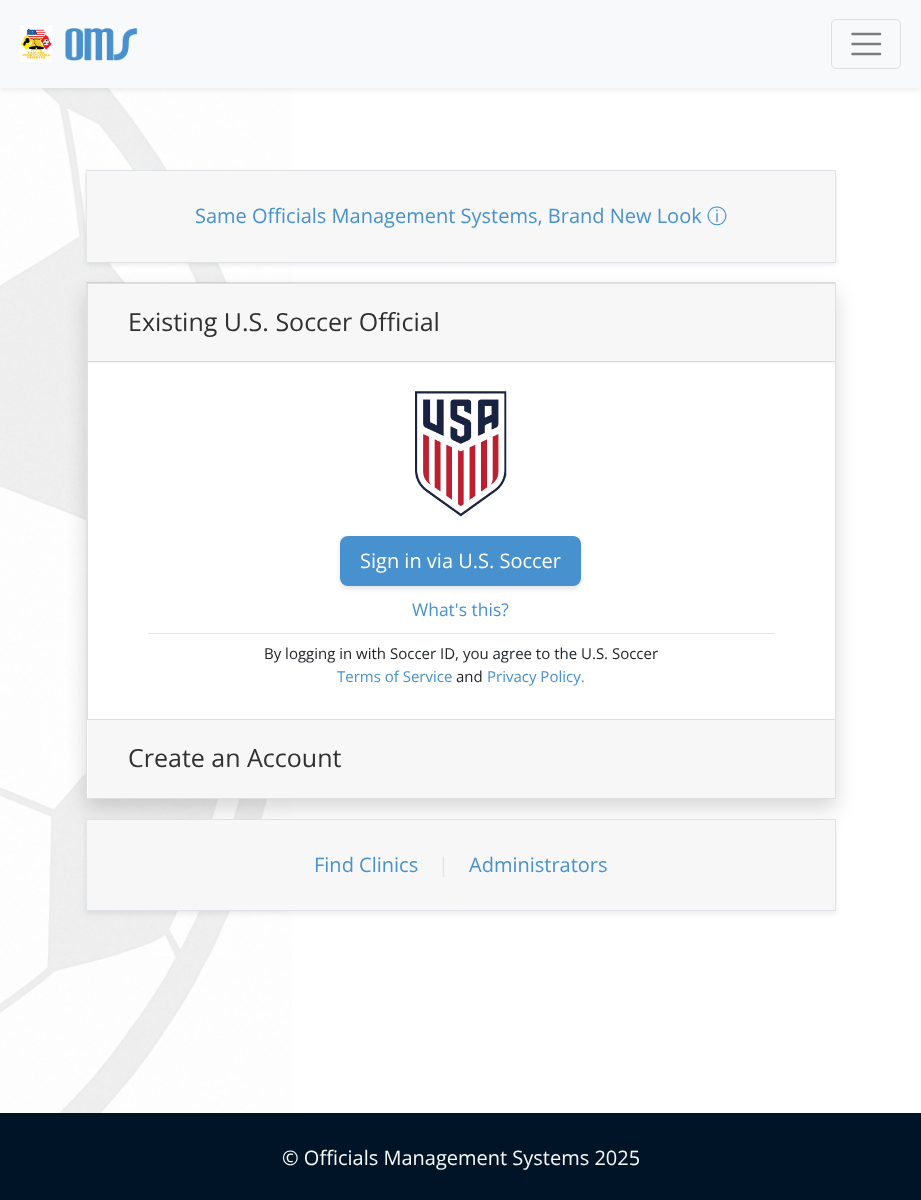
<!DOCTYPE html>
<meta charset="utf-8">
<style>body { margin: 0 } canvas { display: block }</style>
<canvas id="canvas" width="921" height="1200"></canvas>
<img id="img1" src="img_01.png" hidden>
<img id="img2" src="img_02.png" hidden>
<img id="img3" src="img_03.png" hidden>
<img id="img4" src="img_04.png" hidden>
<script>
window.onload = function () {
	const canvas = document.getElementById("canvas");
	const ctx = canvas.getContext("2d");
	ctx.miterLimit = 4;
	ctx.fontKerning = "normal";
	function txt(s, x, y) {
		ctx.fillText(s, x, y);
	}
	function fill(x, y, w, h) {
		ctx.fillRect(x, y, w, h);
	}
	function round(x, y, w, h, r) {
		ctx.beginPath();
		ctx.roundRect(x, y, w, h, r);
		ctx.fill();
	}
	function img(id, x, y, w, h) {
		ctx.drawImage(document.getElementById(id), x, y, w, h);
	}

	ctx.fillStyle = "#FFFFFF";
	fill(0, 0, 921, 1200);
	img("img1", 0, 88, 292, 1025);
	ctx.fillStyle = "rgba(0, 0, 0, 0.07)";
	ctx.filter = "blur(2.5px)";
	ctx.beginPath();
	ctx.rect(0, 3, 921, 87);
	ctx.fill();
	ctx.filter = "none";
	ctx.fillStyle = "#F8F9FA";
	fill(0, 0, 921, 88);
	img("img2", 20, 25, 32, 37);
	img("img3", 65, 28, 73, 33);
	ctx.beginPath();
	ctx.roundRect(831.5, 19.5, 69, 49, 4.5);
	ctx.strokeStyle = "#DFE0E1";
	ctx.stroke();
	ctx.beginPath();
	ctx.moveTo(852.5, 34);
	ctx.lineTo(880, 34);
	ctx.moveTo(852.5, 44);
	ctx.lineTo(880, 44);
	ctx.moveTo(852.5, 54);
	ctx.lineTo(880, 54);
	ctx.strokeStyle = "#7C7D7D";
	ctx.lineWidth = 2.5;
	ctx.lineCap = "round";
	ctx.stroke();
	ctx.fillStyle = "rgba(0, 0, 0, 0.07)";
	ctx.filter = "blur(2.5px)";
	ctx.beginPath();
	ctx.rect(86, 173, 750, 92);
	ctx.fill();
	ctx.filter = "none";
	ctx.fillStyle = "#F7F7F7";
	ctx.beginPath();
	ctx.rect(86.5, 170.5, 749, 92);
	ctx.fill();
	ctx.strokeStyle = "#DEE2E6";
	ctx.lineWidth = 1;
	ctx.stroke();
	ctx.fillStyle = "rgba(0, 0, 0, 0.15)";
	ctx.filter = "blur(10px)";
	ctx.beginPath();
	ctx.rect(86, 293, 750, 516);
	ctx.fill();
	ctx.filter = "none";
	ctx.fillStyle = "#FFFFFF";
	fill(86, 283, 750, 515);
	ctx.fillStyle = "rgba(0, 0, 0, 0.12)";
	ctx.beginPath();
	ctx.moveTo(86, 282);
	ctx.lineTo(836, 282);
	ctx.lineTo(835, 284);
	ctx.lineTo(88, 284);
	ctx.closePath();
	ctx.fill();
	ctx.beginPath();
	ctx.moveTo(836, 282);
	ctx.lineTo(836, 719);
	ctx.lineTo(835, 719);
	ctx.lineTo(835, 284);
	ctx.closePath();
	ctx.fill();
	ctx.beginPath();
	ctx.moveTo(86, 719);
	ctx.lineTo(86, 282);
	ctx.lineTo(88, 284);
	ctx.lineTo(88, 719);
	ctx.closePath();
	ctx.fill();
	ctx.fillStyle = "#F7F7F7";
	fill(88, 284, 747, 79);
	ctx.fillStyle = "#D8D8D8";
	fill(88, 361, 747, 1);
	img("img4", 415, 391, 92, 126);
	ctx.fillStyle = "rgba(0, 0, 0, 0.1)";
	ctx.filter = "blur(2.5px)";
	ctx.beginPath();
	ctx.roundRect(340, 539, 241, 50, 8);
	ctx.fill();
	ctx.filter = "none";
	ctx.fillStyle = "#4791CE";
	round(340, 536, 241, 50, 8);
	ctx.fillStyle = "#E4E4E4";
	fill(148, 633, 627, 1);
	ctx.strokeStyle = "#DFDFDF";
	ctx.strokeRect(86.5, 719.5, 749, 79);
	ctx.fillStyle = "#F7F7F7";
	fill(88, 720, 747, 78);
	ctx.fillStyle = "rgba(0, 0, 0, 0.07)";
	ctx.filter = "blur(2.5px)";
	ctx.beginPath();
	ctx.rect(86, 821, 750, 93);
	ctx.fill();
	ctx.filter = "none";
	ctx.fillStyle = "#F7F7F7";
	ctx.beginPath();
	ctx.rect(86.5, 819.5, 749, 91);
	ctx.fill();
	ctx.strokeStyle = "#DEE2E6";
	ctx.stroke();
	ctx.fillStyle = "#001427";
	fill(0, 1113, 921, 87);
	ctx.font = "20px Open Sans";
	ctx.fillStyle = "#4791CE";
	txt("Same Officials Management Systems, Brand New Look", 195, 223);
	ctx.font = "500 20px WenQuanYi Zen Hei";
	txt("ⓘ", 707, 223);
	ctx.font = "25px Open Sans";
	ctx.fillStyle = "#303030";
	txt("Existing U.S. Soccer Official", 128, 331);
	ctx.font = "20px Open Sans";
	ctx.fillStyle = "#FFFFFF";
	txt("Sign in via U.S. Soccer", 360, 568);
	ctx.font = "17.5px Open Sans";
	ctx.fillStyle = "#4791CE";
	txt("What's this?", 412, 616);
	ctx.font = "15px Open Sans";
	ctx.fillStyle = "#212529";
	txt("By logging in with Soccer ID, you agree to the U.S. Soccer", 264, 659);
	ctx.fillStyle = "#4791CE";
	txt("Terms of Service", 337, 682);
	ctx.fillStyle = "#212529";
	txt("and", 456, 682);
	ctx.fillStyle = "#4791CE";
	txt("Privacy Policy.", 487, 682);
	ctx.font = "25px Open Sans";
	ctx.fillStyle = "#303030";
	txt("Create an Account", 128, 767);
	ctx.font = "20px Open Sans";
	ctx.fillStyle = "#4791CE";
	txt("Find Clinics", 314, 872);
	ctx.fillStyle = "#E4E4E4";
	txt("|", 438, 872);
	ctx.fillStyle = "#4791CE";
	txt("Administrators", 469, 872);
	ctx.fillStyle = "#F8F9FA";
	txt("© Officials Management Systems 2025", 282, 1165);
};
</script>
